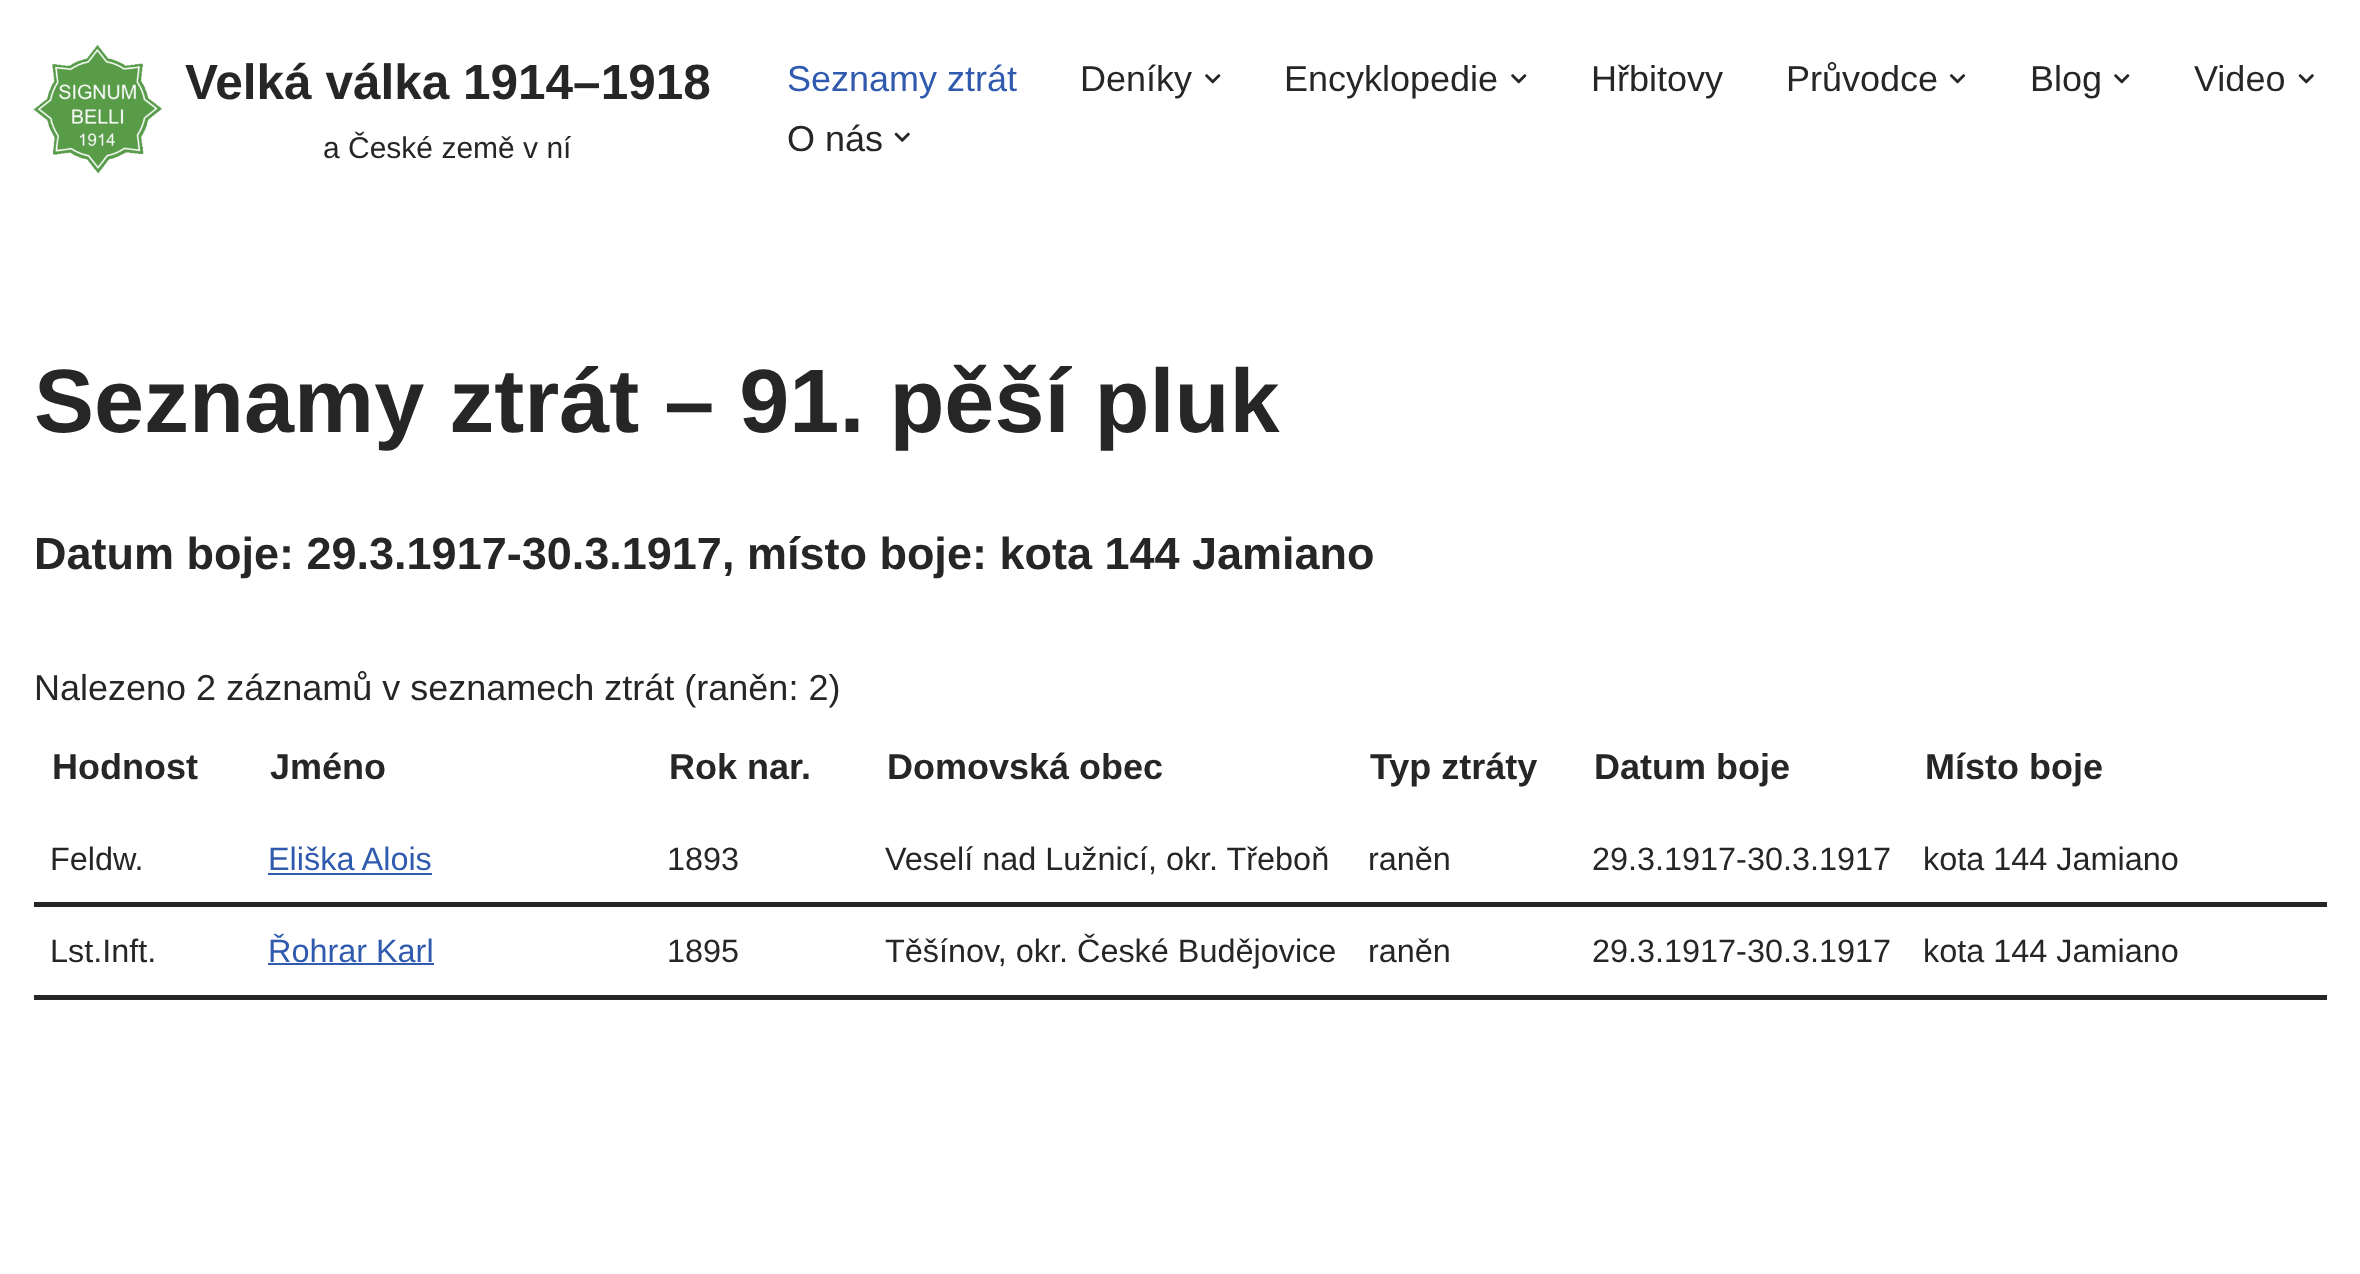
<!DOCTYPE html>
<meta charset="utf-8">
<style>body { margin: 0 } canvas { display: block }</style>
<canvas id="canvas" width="2360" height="1274"></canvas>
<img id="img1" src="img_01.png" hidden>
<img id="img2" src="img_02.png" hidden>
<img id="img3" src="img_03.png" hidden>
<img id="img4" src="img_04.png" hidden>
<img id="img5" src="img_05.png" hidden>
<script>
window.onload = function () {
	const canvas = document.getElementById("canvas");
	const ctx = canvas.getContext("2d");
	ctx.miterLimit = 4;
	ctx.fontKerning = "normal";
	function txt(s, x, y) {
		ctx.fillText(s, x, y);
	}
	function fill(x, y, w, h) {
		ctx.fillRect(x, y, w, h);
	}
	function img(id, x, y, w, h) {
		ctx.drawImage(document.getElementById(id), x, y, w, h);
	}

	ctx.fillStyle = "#FFFFFF";
	fill(0, 0, 2360, 1274);
	img("img1", 33, 45, 129, 129);
	img("img2", 1205, 74, 16, 10);
	img("img2", 1511, 74, 16, 10);
	img("img3", 1949, 74, 17, 10);
	img("img2", 2114, 74, 16, 10);
	img("img4", 2298, 74, 16, 10);
	img("img5", 894, 132, 16, 10);
	ctx.fillStyle = "#272626";
	fill(34, 902, 2293, 5);
	ctx.fillStyle = "#2F5AAE";
	fill(268, 873, 164, 2);
	ctx.fillStyle = "#272626";
	fill(34, 995, 2293, 5);
	ctx.fillStyle = "#2F5AAE";
	fill(268, 963, 166, 2);
	ctx.font = "bold 49.5px Liberation Sans";
	ctx.fillStyle = "#272626";
	txt("Velká válka 1914–1918", 185, 99);
	ctx.font = "30px Liberation Sans";
	txt("a České země v ní", 323, 158);
	ctx.font = "36px Liberation Sans";
	ctx.fillStyle = "#2F5AAE";
	txt("Seznamy ztrát", 787, 91);
	ctx.fillStyle = "#272626";
	txt("Deníky", 1080, 91);
	txt("Encyklopedie", 1284, 91);
	txt("Hřbitovy", 1591, 91);
	txt("Průvodce", 1786, 91);
	txt("Blog", 2030, 91);
	txt("Video", 2194, 91);
	txt("O nás", 787, 151);
	ctx.font = "bold 90px Liberation Sans";
	txt("Seznamy ztrát – 91. pěší pluk", 34, 432);
	ctx.font = "bold 45px Liberation Sans";
	txt("Datum boje: 29.3.1917-30.3.1917, místo boje: kota 144 Jamiano", 34, 569);
	ctx.font = "36px Liberation Sans";
	txt("Nalezeno 2 záznamů v seznamech ztrát (raněn: 2)", 34, 700);
	ctx.font = "bold 36px Liberation Sans";
	txt("Hodnost", 52, 779);
	txt("Jméno", 270, 779);
	txt("Rok nar.", 669, 779);
	txt("Domovská obec", 887, 779);
	txt("Typ ztráty", 1370, 779);
	txt("Datum boje", 1594, 779);
	txt("Místo boje", 1925, 779);
	ctx.font = "32.4px Liberation Sans";
	txt("Feldw.", 50, 870);
	ctx.fillStyle = "#2F5AAE";
	txt("Eliška Alois", 268, 870);
	ctx.fillStyle = "#272626";
	txt("1893", 667, 870);
	txt("Veselí nad Lužnicí, okr. Třeboň", 885, 870);
	txt("raněn", 1368, 870);
	txt("29.3.1917-30.3.1917", 1592, 870);
	txt("kota 144 Jamiano", 1923, 870);
	txt("Lst.Inft.", 50, 962);
	ctx.fillStyle = "#2F5AAE";
	txt("Řohrar Karl", 268, 962);
	ctx.fillStyle = "#272626";
	txt("1895", 667, 962);
	txt("Těšínov, okr. České Budějovice", 885, 962);
	txt("raněn", 1368, 962);
	txt("29.3.1917-30.3.1917", 1592, 962);
	txt("kota 144 Jamiano", 1923, 962);
};
</script>
